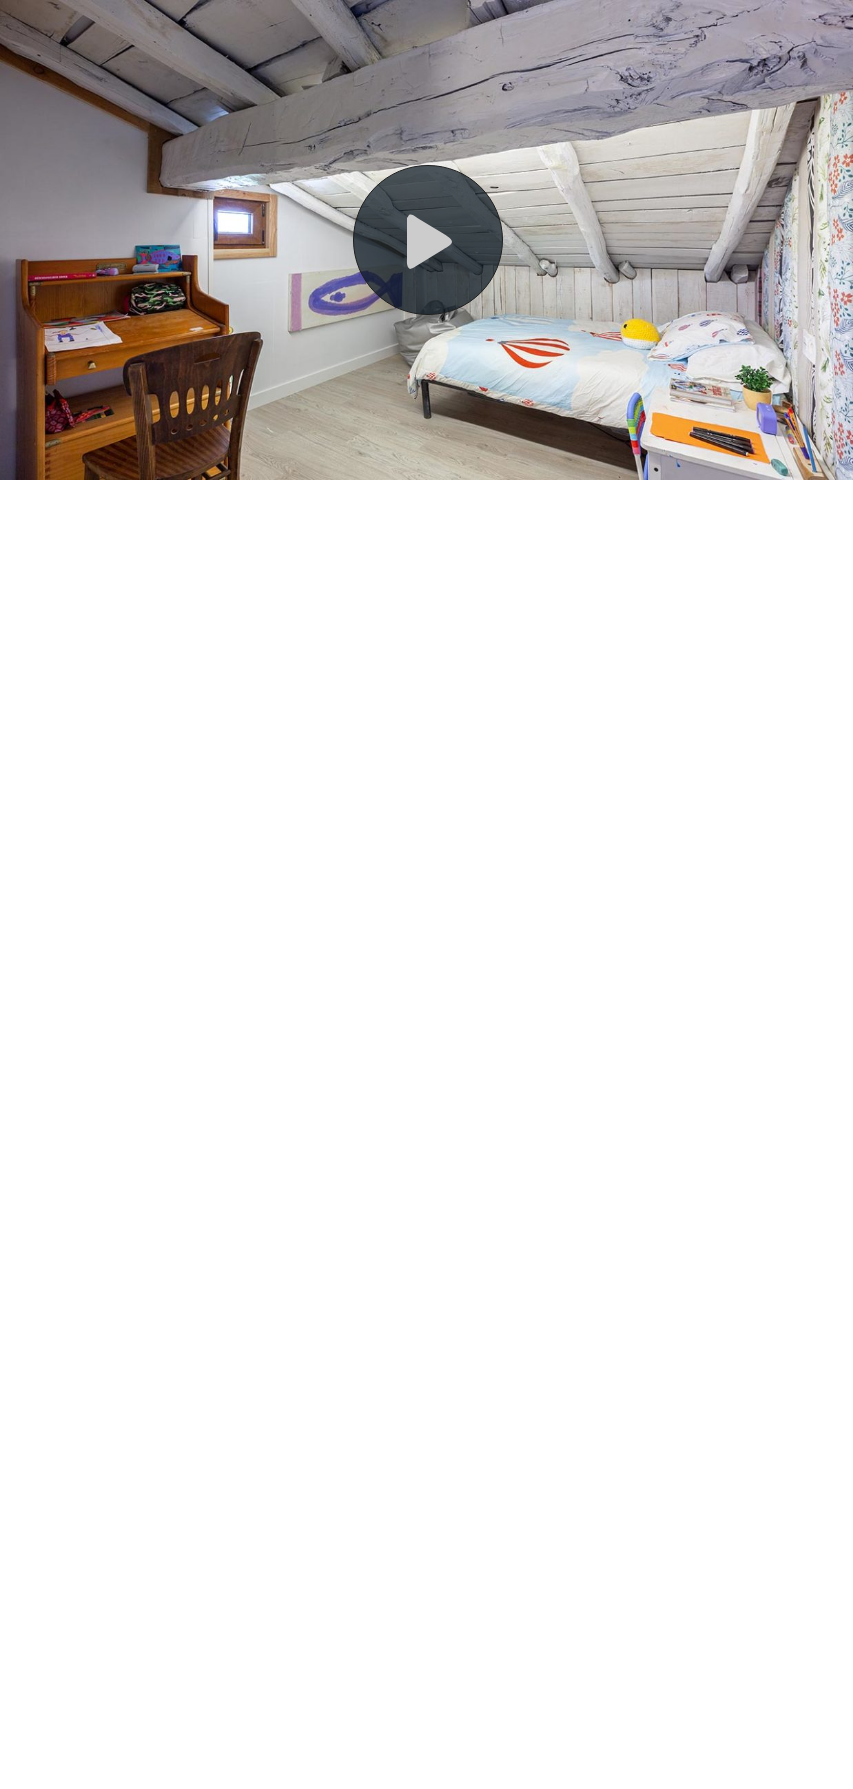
<!DOCTYPE html>
<meta charset="utf-8">
<style>body { margin: 0 } canvas { display: block }</style>
<canvas id="canvas" width="853" height="1789"></canvas>
<img id="img1" src="img_01.png" hidden>
<script>
window.onload = function () {
	const canvas = document.getElementById("canvas");
	const ctx = canvas.getContext("2d");
	ctx.miterLimit = 4;
	ctx.fontKerning = "normal";
	function fill(x, y, w, h) {
		ctx.fillRect(x, y, w, h);
	}
	function img(id, x, y, w, h) {
		ctx.drawImage(document.getElementById(id), x, y, w, h);
	}

	ctx.fillStyle = "#FFFFFF";
	fill(0, 0, 853, 1789);
	img("img1", 0, 0, 853, 480);
	ctx.fillStyle = "rgba(7, 20, 30, 0.7)";
	ctx.beginPath();
	ctx.arc(428, 240, 74.5, 0, Math.PI * 2);
	ctx.fill();
	ctx.strokeStyle = "#1F1F1F";
	ctx.stroke();
	ctx.fillStyle = "#CCCCCC";
	ctx.beginPath();
	ctx.moveTo(452, 242);
	ctx.bezierCurveTo(452, 238, 445, 235, 444, 234);
	ctx.lineTo(419, 219);
	ctx.bezierCurveTo(417, 218, 412, 213, 409, 215);
	ctx.lineTo(407, 218);
	ctx.lineTo(407, 257);
	ctx.bezierCurveTo(407, 260, 406, 267, 410, 269);
	ctx.lineTo(413, 268);
	ctx.lineTo(444, 249);
	ctx.bezierCurveTo(445, 248, 452, 245, 452, 242);
	ctx.closePath();
	ctx.fill();
};
</script>
